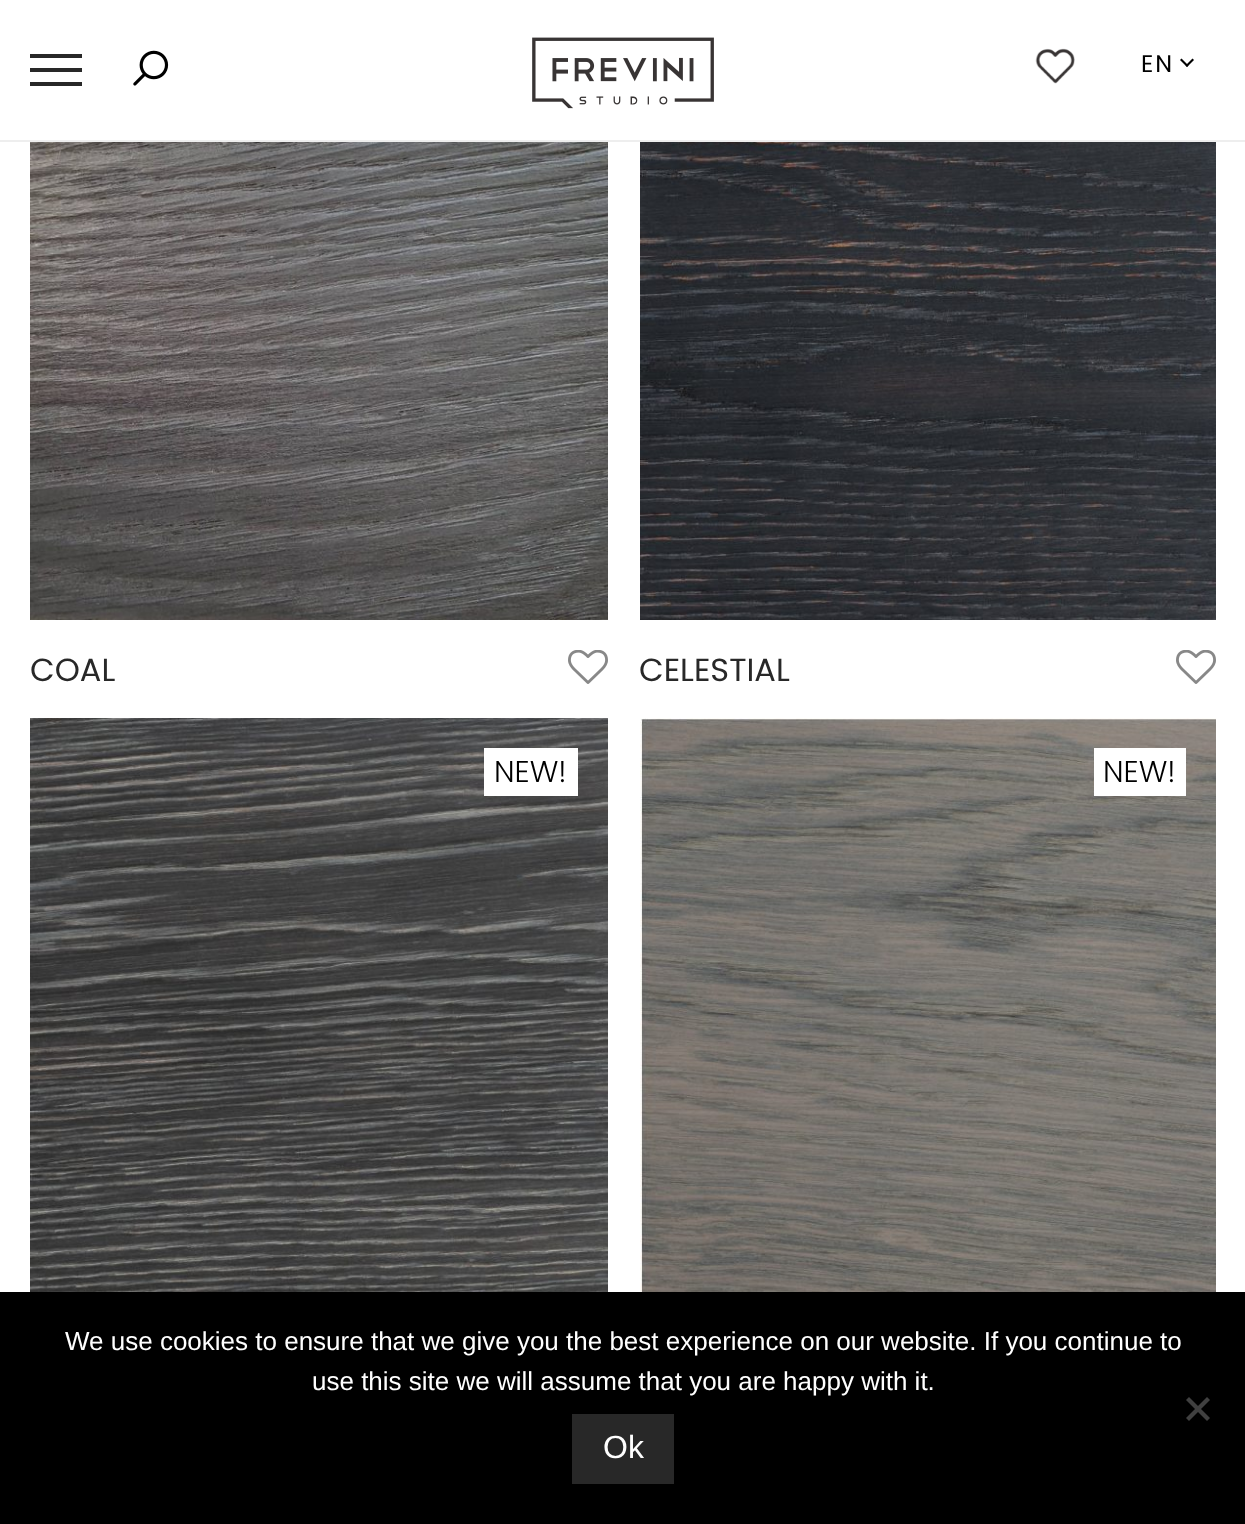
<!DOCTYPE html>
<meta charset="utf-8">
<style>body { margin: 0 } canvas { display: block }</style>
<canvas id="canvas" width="1245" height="1524"></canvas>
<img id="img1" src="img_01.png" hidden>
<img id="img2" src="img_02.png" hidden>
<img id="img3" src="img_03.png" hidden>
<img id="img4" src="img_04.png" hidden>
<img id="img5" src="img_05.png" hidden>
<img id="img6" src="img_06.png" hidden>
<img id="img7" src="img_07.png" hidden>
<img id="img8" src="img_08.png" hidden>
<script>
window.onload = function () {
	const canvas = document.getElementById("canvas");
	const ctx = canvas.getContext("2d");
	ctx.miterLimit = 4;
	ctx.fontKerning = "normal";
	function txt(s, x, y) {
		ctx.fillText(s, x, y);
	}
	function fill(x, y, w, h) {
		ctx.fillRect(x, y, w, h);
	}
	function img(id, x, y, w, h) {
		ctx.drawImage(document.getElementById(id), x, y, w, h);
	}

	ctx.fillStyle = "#FFFFFF";
	fill(0, 0, 1245, 1524);
	ctx.fillStyle = "#EEEEEE";
	fill(0, 140, 1245, 2);
	ctx.fillStyle = "#282828";
	fill(30, 54, 52, 4);
	fill(30, 68, 52, 4);
	fill(30, 82, 52, 4);
	img("img1", 133, 50, 36, 36);
	img("img2", 532, 37, 182, 72);
	img("img3", 1035, 48, 40, 36);
	ctx.fillStyle = "#000000";
	ctx.beginPath();
	ctx.moveTo(1192.5, 58.5);
	ctx.lineTo(1194, 60);
	ctx.lineTo(1187, 67);
	ctx.lineTo(1185.5, 65.5);
	ctx.closePath();
	ctx.fill();
	ctx.beginPath();
	ctx.moveTo(1181.5, 58.5);
	ctx.lineTo(1188.5, 65.5);
	ctx.lineTo(1187, 67);
	ctx.lineTo(1180, 60);
	ctx.closePath();
	ctx.fill();
	img("img4", 30, 142, 578, 478);
	img("img5", 568, 650, 40, 34);
	img("img6", 640, 142, 576, 478);
	img("img5", 1176, 650, 40, 34);
	img("img7", 30, 718, 578, 574);
	ctx.fillStyle = "#FFFFFF";
	fill(484, 748, 94, 48);
	img("img8", 640, 718, 576, 574);
	fill(1094, 748, 92, 48);
	ctx.fillStyle = "#000000";
	fill(0, 1292, 1245, 232);
	ctx.fillStyle = "#404040";
	ctx.beginPath();
	ctx.moveTo(1207, 1397);
	ctx.lineTo(1210, 1400);
	ctx.lineTo(1189, 1421);
	ctx.lineTo(1186, 1418);
	ctx.closePath();
	ctx.fill();
	ctx.beginPath();
	ctx.moveTo(1186, 1400);
	ctx.lineTo(1189, 1397);
	ctx.lineTo(1210, 1418);
	ctx.lineTo(1207, 1421);
	ctx.closePath();
	ctx.fill();
	ctx.fillStyle = "#282828";
	fill(572, 1414, 102, 70);
	ctx.letterSpacing = "2px";
	ctx.font = "24px Poppins";
	ctx.fillStyle = "#000000";
	txt("EN", 1141, 72);
	ctx.letterSpacing = "0px";
	ctx.font = "32px Poppins";
	ctx.fillStyle = "#282828";
	txt("COAL", 30, 681);
	txt("CELESTIAL", 639, 681);
	ctx.font = "300 30px Poppins";
	ctx.fillStyle = "#000000";
	txt("NEW!", 494, 782);
	txt("NEW!", 1103, 782);
	ctx.font = "26px Liberation Sans";
	ctx.fillStyle = "#FFFFFF";
	txt("We use cookies to ensure that we give you the best experience on our website. If you continue to", 65, 1350);
	txt("use this site we will assume that you are happy with it.", 312, 1390);
	ctx.font = "32px Liberation Sans";
	txt("Ok", 603, 1458);
};
</script>
